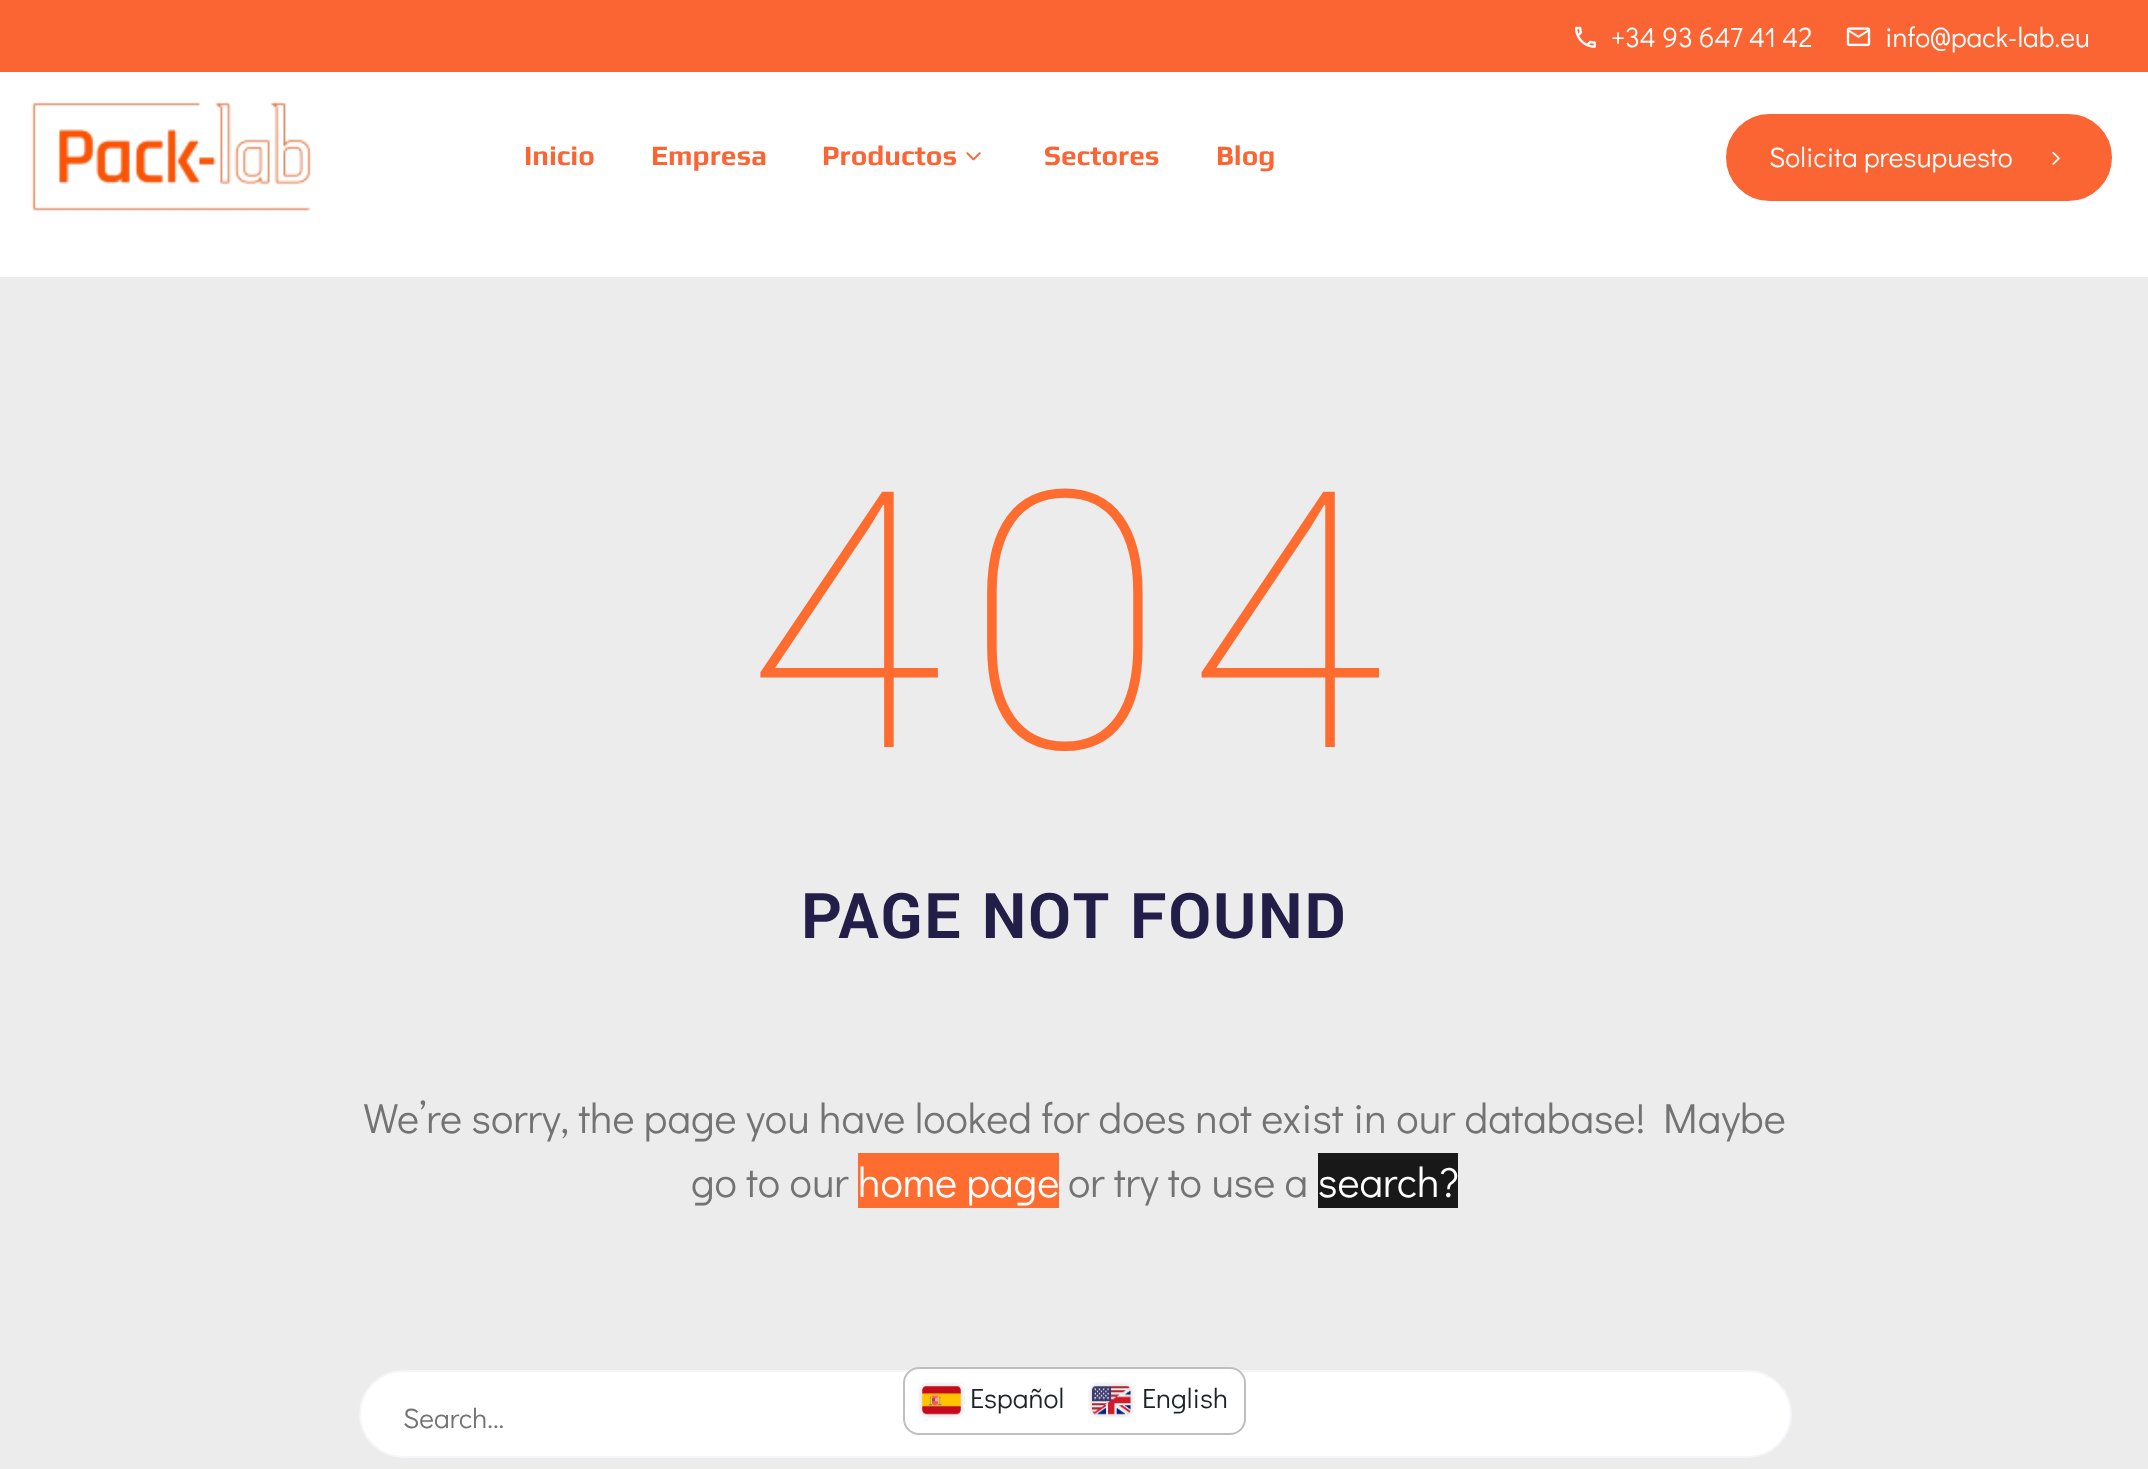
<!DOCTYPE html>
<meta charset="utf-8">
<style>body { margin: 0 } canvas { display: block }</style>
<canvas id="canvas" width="2148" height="1469"></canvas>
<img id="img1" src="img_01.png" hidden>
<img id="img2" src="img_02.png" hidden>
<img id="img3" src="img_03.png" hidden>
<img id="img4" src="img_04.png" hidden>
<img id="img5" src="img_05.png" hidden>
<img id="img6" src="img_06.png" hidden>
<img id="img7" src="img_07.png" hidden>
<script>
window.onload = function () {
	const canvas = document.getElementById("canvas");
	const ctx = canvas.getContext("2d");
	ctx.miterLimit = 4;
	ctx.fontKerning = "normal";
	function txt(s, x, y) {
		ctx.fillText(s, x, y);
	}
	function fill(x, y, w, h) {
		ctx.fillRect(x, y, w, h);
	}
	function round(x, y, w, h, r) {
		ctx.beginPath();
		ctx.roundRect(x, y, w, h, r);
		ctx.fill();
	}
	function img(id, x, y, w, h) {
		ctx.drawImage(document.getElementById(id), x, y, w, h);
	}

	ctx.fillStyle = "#FFFFFF";
	fill(0, 0, 2148, 1469);
	ctx.fillStyle = "#FB6534";
	fill(0, 0, 2148, 72);
	img("img1", 1575, 26, 21, 22);
	img("img2", 1846, 27, 25, 20);
	img("img3", 31, 101, 281, 110);
	img("img4", 966, 152, 15, 9);
	ctx.beginPath();
	ctx.roundRect(1727, 115, 384, 85, 42.5);
	ctx.fill();
	ctx.strokeStyle = "#FB6534";
	ctx.lineWidth = 2;
	ctx.stroke();
	img("img5", 2052, 151, 8, 14);
	ctx.fillStyle = "#ECECEC";
	fill(0, 277, 2148, 1192);
	ctx.fillStyle = "#FF6C30";
	fill(858, 1153, 201, 55);
	ctx.fillStyle = "#181818";
	fill(1318, 1153, 140, 55);
	ctx.fillStyle = "#FFFFFF";
	ctx.beginPath();
	ctx.roundRect(360, 1371, 1431, 86, 43);
	ctx.fill();
	ctx.strokeStyle = "#F5F5FA";
	ctx.stroke();
	round(903, 1367, 343, 68, 16);
	ctx.beginPath();
	ctx.roundRect(904, 1368, 341, 66, 15);
	ctx.strokeStyle = "rgba(0, 0, 0, 0.25)";
	ctx.stroke();
	img("img6", 918, 1382, 47, 36);
	img("img7", 1088, 1382, 47, 36);
	ctx.font = "28px Didact Gothic";
	txt("+34 93 647 41 42", 1611, 47);
	txt("info@pack-lab.eu", 1885, 47);
	ctx.font = "bold 28px Play";
	ctx.fillStyle = "#FB6534";
	txt("Inicio", 524, 165);
	txt("Empresa", 651, 165);
	txt("Productos", 822, 165);
	txt("Sectores", 1044, 165);
	txt("Blog", 1216, 165);
	ctx.font = "28px Didact Gothic";
	ctx.fillStyle = "#FFFFFF";
	txt("Solicita presupuesto", 1769, 167);
	ctx.letterSpacing = "20px";
	ctx.font = "100 399px Yantramanav";
	ctx.fillStyle = "#FF6C30";
	txt("404", 746, 747);
	ctx.letterSpacing = "1.75px";
	ctx.font = "bold 70px Yantramanav";
	ctx.fillStyle = "#231E48";
	txt("PAGE NOT FOUND", 801, 938);
	ctx.letterSpacing = "0px";
	ctx.font = "42px Didact Gothic";
	ctx.fillStyle = "#737373";
	txt("We’re sorry, the page you have looked for does not exist in our database! Maybe", 363, 1133);
	txt("go to our", 691, 1197);
	ctx.fillStyle = "#FFFFFF";
	txt("home page", 858, 1197);
	ctx.fillStyle = "#737373";
	txt("or try to use a", 1068, 1197);
	ctx.fillStyle = "#FFFFFF";
	txt("search?", 1318, 1197);
	ctx.font = "28px Didact Gothic";
	ctx.fillStyle = "#737373";
	txt("Search...", 403, 1428);
	ctx.fillStyle = "#1D2327";
	txt("Español", 970, 1408);
	txt("English", 1142, 1408);
};
</script>
